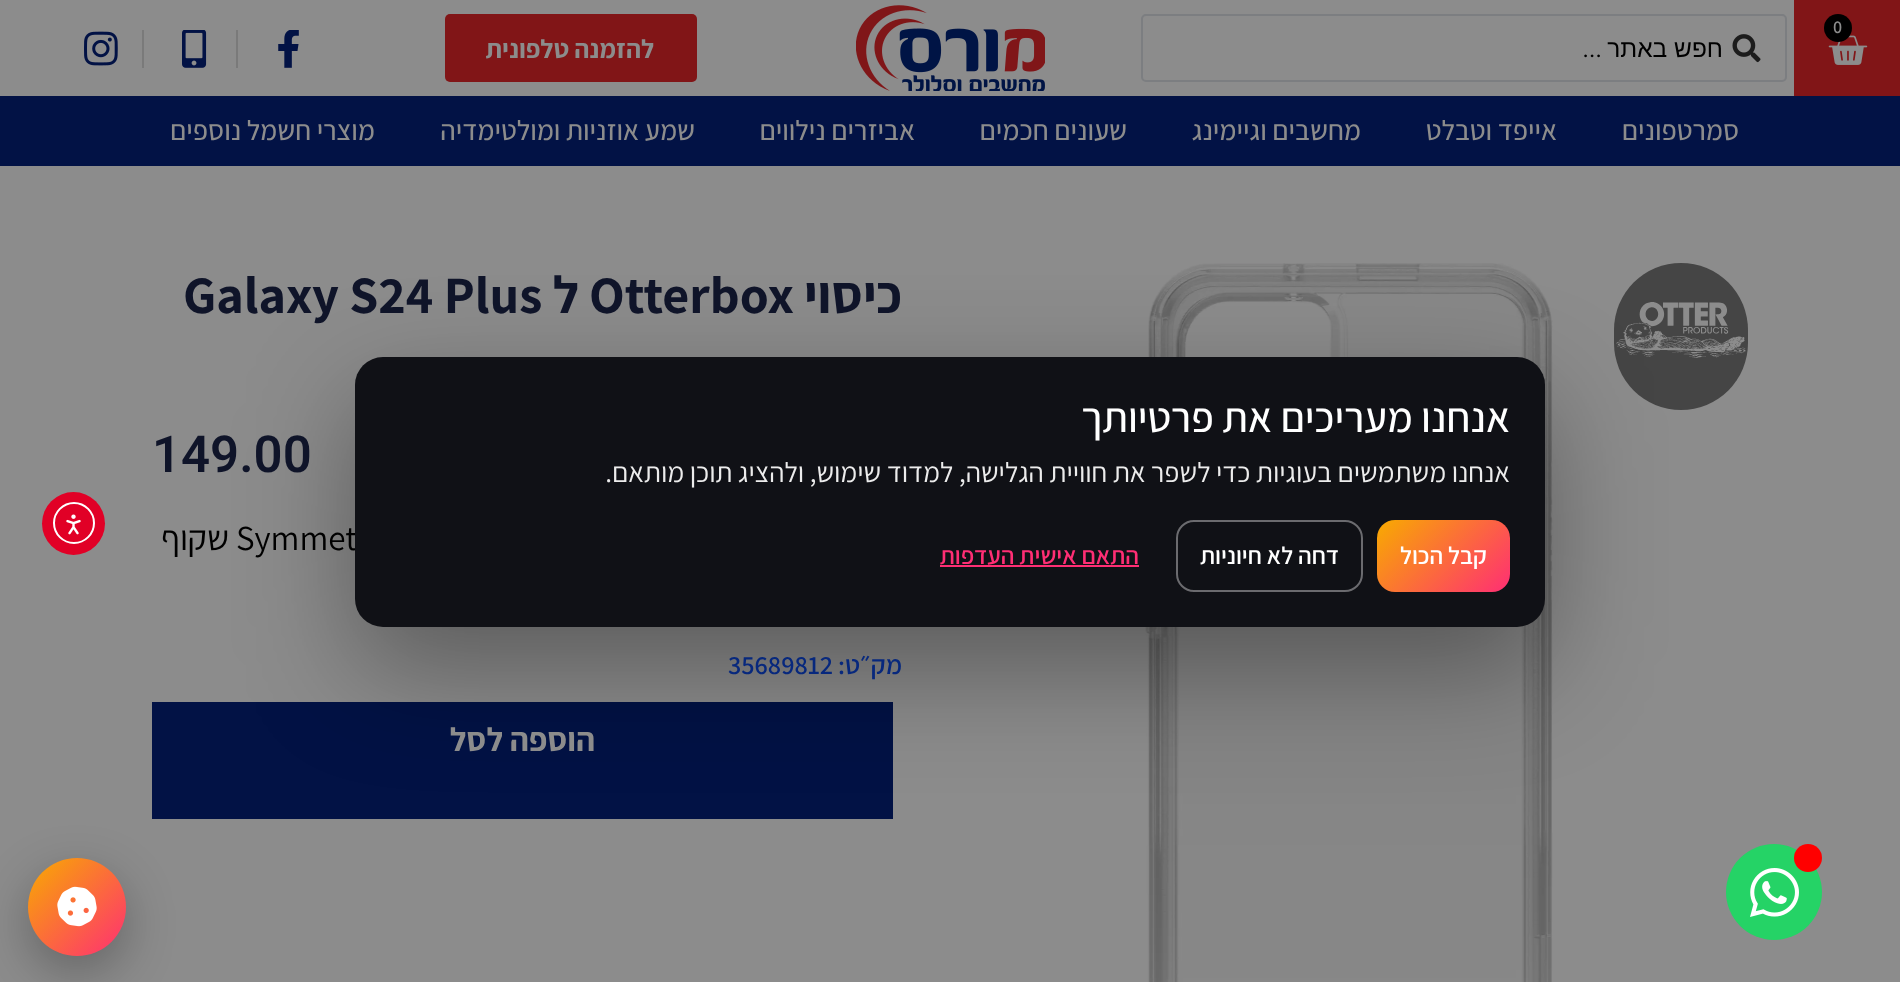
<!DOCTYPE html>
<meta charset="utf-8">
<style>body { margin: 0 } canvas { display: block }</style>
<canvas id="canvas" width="1900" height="982"></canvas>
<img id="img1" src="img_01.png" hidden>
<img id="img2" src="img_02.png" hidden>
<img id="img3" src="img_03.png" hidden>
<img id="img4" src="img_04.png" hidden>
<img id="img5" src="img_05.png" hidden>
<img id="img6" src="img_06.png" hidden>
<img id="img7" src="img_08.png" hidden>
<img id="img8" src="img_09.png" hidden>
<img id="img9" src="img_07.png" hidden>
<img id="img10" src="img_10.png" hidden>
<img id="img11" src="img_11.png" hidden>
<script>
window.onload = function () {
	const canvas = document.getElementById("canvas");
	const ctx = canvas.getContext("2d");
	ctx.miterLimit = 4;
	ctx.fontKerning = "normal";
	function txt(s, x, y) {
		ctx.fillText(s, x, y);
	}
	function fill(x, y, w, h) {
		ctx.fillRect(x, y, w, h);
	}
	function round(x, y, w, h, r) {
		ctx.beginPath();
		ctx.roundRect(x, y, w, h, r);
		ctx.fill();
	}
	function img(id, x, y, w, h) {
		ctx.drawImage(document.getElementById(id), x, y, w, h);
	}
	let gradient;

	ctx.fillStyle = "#8C8C8C";
	fill(0, 0, 1900, 982);
	ctx.fillStyle = "#811517";
	fill(1794, 0, 106, 96);
	img("img1", 1828, 35, 40, 30);
	ctx.fillStyle = "#000000";
	ctx.beginPath();
	ctx.arc(1838, 28, 14, 0, Math.PI * 2);
	ctx.fill();
	img("img2", 856, 5, 189, 86);
	ctx.beginPath();
	ctx.roundRect(1142, 15, 644, 66, 4);
	ctx.strokeStyle = "#7C7E81";
	ctx.lineWidth = 2;
	ctx.stroke();
	img("img3", 1732, 34, 29, 29);
	ctx.fillStyle = "#811517";
	round(445, 14, 252, 68, 5);
	img("img4", 278, 30, 21, 38);
	ctx.fillStyle = "#7A7A7A";
	fill(236, 30, 2, 38);
	img("img5", 182, 30, 25, 38);
	fill(142, 30, 2, 38);
	img("img6", 84, 31, 34, 35);
	ctx.fillStyle = "#021245";
	fill(0, 96, 1900, 70);
	ctx.fillStyle = "#454545";
	round(1614, 263, 134, 147, 67);
	img("img7", 1616, 302, 130, 56);
	img("img8", 1145, 263, 408, 719);
	ctx.fillStyle = "#021245";
	fill(152, 702, 741, 117);
	ctx.fillStyle = "rgba(0, 0, 0, 0.35)";
	ctx.filter = "blur(56px)";
	ctx.beginPath();
	ctx.roundRect(355, 399, 1190, 270, 28);
	ctx.fill();
	ctx.filter = "none";
	ctx.fillStyle = "rgba(0, 0, 0, 0.28)";
	ctx.filter = "blur(24.5px)";
	ctx.beginPath();
	ctx.roundRect(28, 875, 98, 98, 49);
	ctx.fill();
	ctx.filter = "none";
	gradient = ctx.createLinearGradient(28, 858, 126, 956);
	gradient.addColorStop(0, "#F8AB00");
	gradient.addColorStop(1, "#FF2E74");
	ctx.fillStyle = gradient;
	ctx.beginPath();
	ctx.arc(77, 907, 49, 0, Math.PI * 2);
	ctx.fill();
	img("img9", 57, 886, 40, 41);
	ctx.fillStyle = "#E10026";
	ctx.beginPath();
	ctx.arc(73.5, 523.5, 31.5, 0, Math.PI * 2);
	ctx.fill();
	ctx.beginPath();
	ctx.arc(74, 523, 20, 0, Math.PI * 2);
	ctx.strokeStyle = "#FFFFFF";
	ctx.stroke();
	img("img10", 66, 514, 15, 21);
	ctx.fillStyle = "#25D366";
	ctx.beginPath();
	ctx.arc(1774, 892, 48, 0, Math.PI * 2);
	ctx.fill();
	img("img11", 1750, 868, 49, 49);
	ctx.fillStyle = "#FF0000";
	ctx.beginPath();
	ctx.arc(1808, 858, 14, 0, Math.PI * 2);
	ctx.fill();
	ctx.font = "600 18px Assistant";
	ctx.fillStyle = "#8C8C8C";
	txt("0", 1833, 33);
	ctx.direction = "rtl";
	ctx.font = "24.5px Liberation Sans";
	ctx.fillStyle = "#000000";
	txt("חפש באתר", 1723, 57);
	ctx.font = "24.5px Roboto";
	txt("...", 1602, 57);
	ctx.font = "bold 26.25px Assistant";
	ctx.fillStyle = "#8C8C8C";
	txt("להזמנה טלפונית", 654, 58);
	ctx.font = "500 28px Assistant";
	txt("סמרטפונים", 1739, 140);
	txt("אייפד וטבלט", 1557, 140);
	txt("מחשבים וגיימינג", 1361, 140);
	txt("שעונים חכמים", 1127, 140);
	txt("אביזרים נילווים", 915, 140);
	txt("שמע אוזניות ומולטימדיה", 695, 140);
	txt("מוצרי חשמל נוספים", 375, 140);
	ctx.font = "bold 52.5px Assistant";
	ctx.fillStyle = "#0F1429";
	txt("כיסוי", 902, 313);
	ctx.direction = "ltr";
	txt("Otterbox", 589, 313);
	ctx.direction = "rtl";
	txt("ל", 579, 313);
	ctx.direction = "ltr";
	txt("Galaxy S24 Plus", 183, 313);
	ctx.font = "600 51px Heebo";
	txt("149.00", 152, 472);
	ctx.font = "35px Assistant";
	ctx.fillStyle = "#000000";
	txt("Symmet", 236, 550);
	ctx.fillStyle = "#101116";
	round(355, 357, 1190, 270, 28);
	ctx.direction = "rtl";
	ctx.font = "28px Assistant";
	ctx.fillStyle = "#ECECEC";
	txt("אנחנו משתמשים בעוגיות כדי לשפר את חוויית הגלישה, למדוד שימוש, ולהציג תוכן מותאם.", 1510, 482);
	ctx.font = "600 24.5px Assistant";
	ctx.fillStyle = "#FF2E74";
	txt("התאם אישית העדפות", 1139, 564);
	fill(940, 565, 199, 2);
	ctx.beginPath();
	ctx.roundRect(1177, 521, 185, 70, 17);
	ctx.strokeStyle = "#6B6B6F";
	ctx.stroke();
	ctx.fillStyle = "#FFFFFF";
	txt("דחה לא חיוניות", 1339, 564);
	gradient = ctx.createLinearGradient(1393, 504, 1495, 607);
	gradient.addColorStop(0, "#F8AB00");
	gradient.addColorStop(1, "#FF2E74");
	ctx.fillStyle = gradient;
	round(1377, 520, 133, 72, 18);
	ctx.fillStyle = "#FFFFFF";
	txt("קבל הכול", 1487, 564);
	ctx.font = "500 42px Assistant";
	txt("אנחנו מעריכים את פרטיותך", 1510, 432);
	ctx.font = "35px Assistant";
	ctx.fillStyle = "#000000";
	txt("שקוף", 229, 550);
	ctx.font = "600 26.25px Assistant";
	ctx.fillStyle = "#07287D";
	txt("מק״ט:", 902, 674);
	ctx.direction = "ltr";
	txt("35689812", 728, 674);
	ctx.direction = "rtl";
	ctx.font = "bold 33.25px Assistant";
	ctx.fillStyle = "#8C8C8C";
	txt("הוספה לסל", 595, 751);
};
</script>
